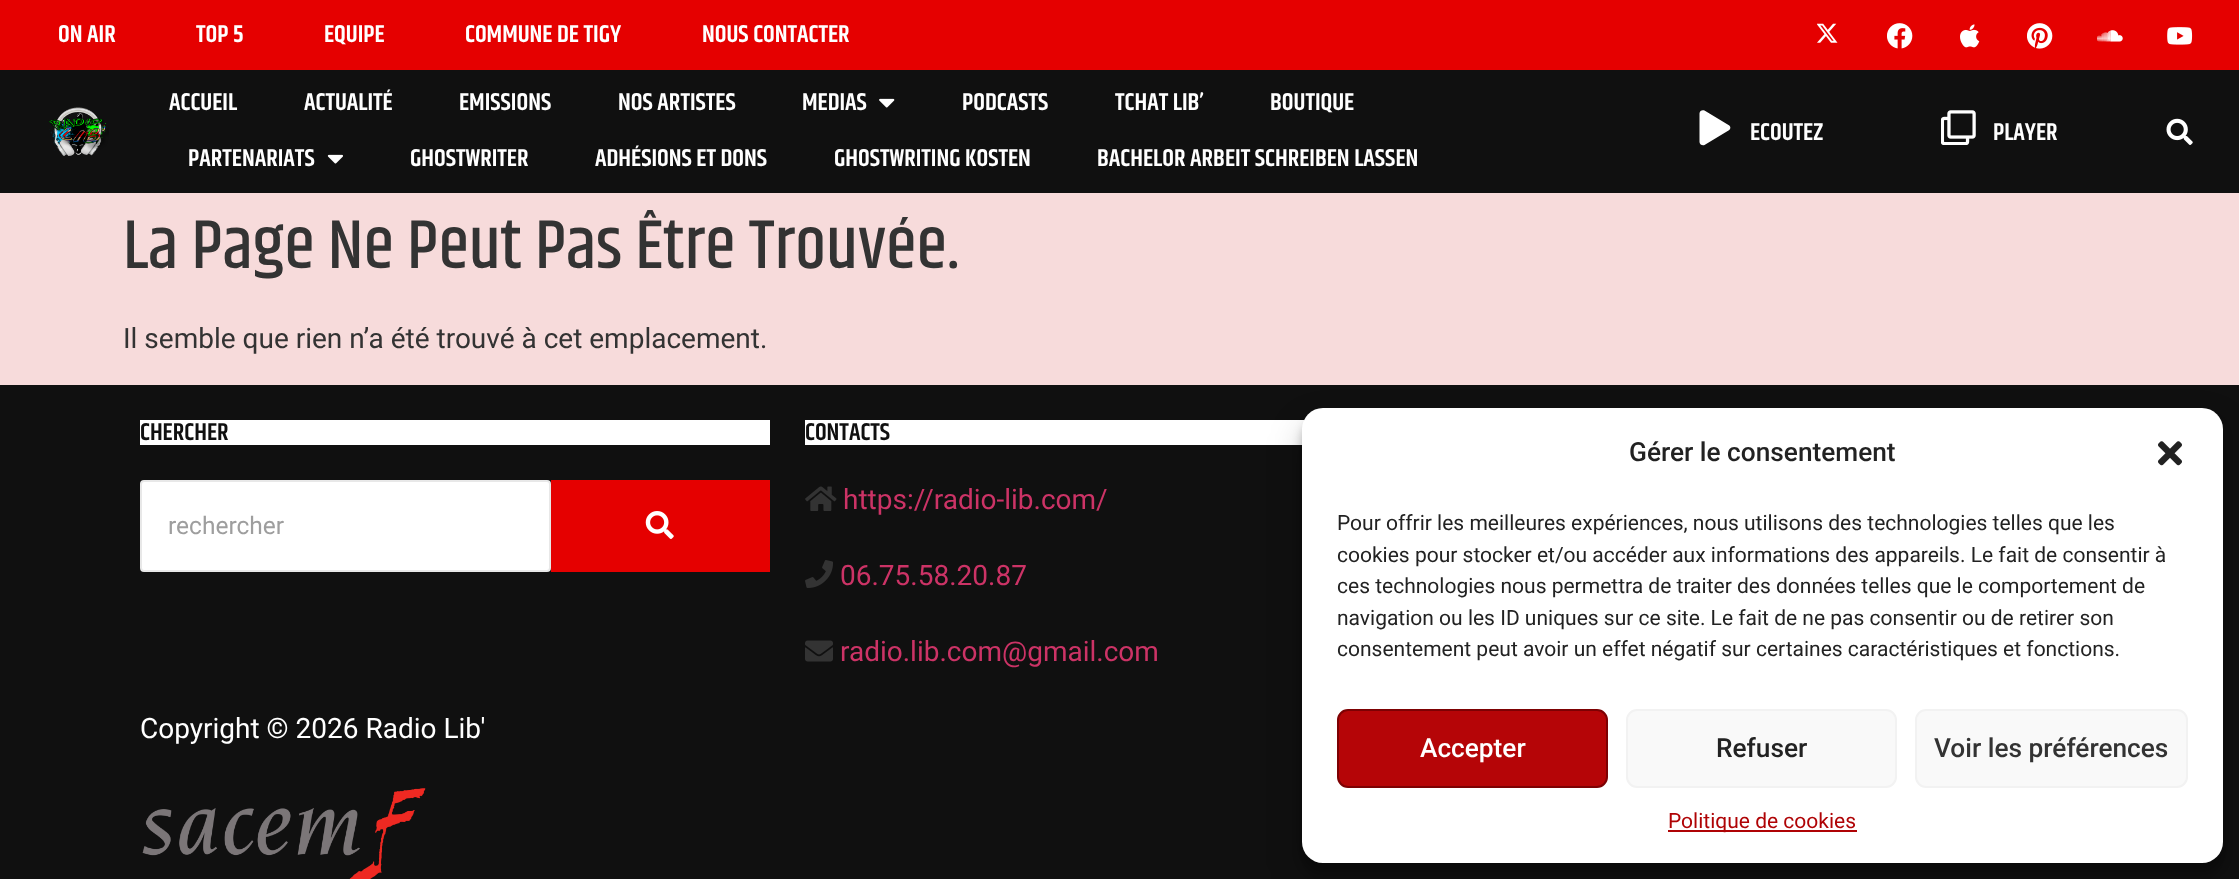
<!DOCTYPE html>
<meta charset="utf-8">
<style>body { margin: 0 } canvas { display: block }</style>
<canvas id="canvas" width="2239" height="879"></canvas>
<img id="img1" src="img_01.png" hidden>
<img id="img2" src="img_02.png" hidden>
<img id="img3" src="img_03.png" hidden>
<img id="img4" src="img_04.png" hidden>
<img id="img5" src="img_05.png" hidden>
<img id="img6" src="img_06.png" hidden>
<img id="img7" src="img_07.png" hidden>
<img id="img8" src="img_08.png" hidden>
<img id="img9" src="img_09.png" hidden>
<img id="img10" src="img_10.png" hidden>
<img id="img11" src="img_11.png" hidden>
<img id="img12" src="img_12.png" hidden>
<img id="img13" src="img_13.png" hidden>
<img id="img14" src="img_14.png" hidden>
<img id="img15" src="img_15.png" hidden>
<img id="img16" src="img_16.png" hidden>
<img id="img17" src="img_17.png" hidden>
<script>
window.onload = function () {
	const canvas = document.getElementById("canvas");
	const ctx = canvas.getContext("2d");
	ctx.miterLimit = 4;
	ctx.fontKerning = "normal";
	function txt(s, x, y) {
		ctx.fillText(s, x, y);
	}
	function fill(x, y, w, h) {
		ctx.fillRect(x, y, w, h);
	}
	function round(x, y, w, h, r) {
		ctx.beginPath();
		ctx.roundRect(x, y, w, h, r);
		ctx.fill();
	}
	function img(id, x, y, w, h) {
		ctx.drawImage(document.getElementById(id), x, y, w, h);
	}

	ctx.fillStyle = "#F7DBDB";
	fill(0, 0, 2239, 879);
	ctx.fillStyle = "#E50000";
	fill(0, 0, 2239, 70);
	img("img1", 1817, 23, 21, 20);
	img("img2", 1887, 23, 26, 26);
	img("img3", 1960, 24, 20, 24);
	img("img4", 2027, 23, 26, 26);
	img("img5", 2097, 30, 26, 12);
	img("img6", 2167, 27, 26, 18);
	ctx.fillStyle = "#101010";
	fill(0, 70, 2239, 123);
	img("img7", 49, 107, 60, 49);
	img("img8", 879, 98, 16, 10);
	img("img9", 327, 154, 16, 10);
	ctx.fillStyle = "#FFFFFF";
	ctx.beginPath();
	ctx.moveTo(1728.5, 125);
	ctx.lineTo(1704.5, 110.5);
	ctx.bezierCurveTo(1702.5, 109.5, 1699.5, 110.5, 1699.5, 113.5);
	ctx.lineTo(1699.5, 142);
	ctx.bezierCurveTo(1699.5, 144.5, 1702.5, 146, 1704.5, 145);
	ctx.lineTo(1728.5, 130.5);
	ctx.bezierCurveTo(1731, 129.5, 1731, 126, 1728.5, 125);
	ctx.closePath();
	ctx.fill();
	img("img10", 1941, 110, 35, 35);
	img("img11", 2166, 118, 27, 27);
	ctx.fillStyle = "#101010";
	fill(0, 385, 2239, 494);
	ctx.fillStyle = "#FFFFFF";
	fill(140, 420, 630, 25);
	ctx.beginPath();
	ctx.roundRect(141, 481, 409, 90, 3);
	ctx.fill();
	ctx.strokeStyle = "#E8E8E8";
	ctx.lineWidth = 2;
	ctx.stroke();
	ctx.fillStyle = "#E50000";
	fill(551, 480, 219, 92);
	img("img12", 645, 511, 29, 28);
	ctx.fillStyle = "#FFFFFF";
	fill(805, 420, 499, 25);
	img("img13", 805, 486, 32, 25);
	img("img14", 805, 560, 28, 28);
	img("img15", 805, 640, 28, 22);
	img("img16", 142, 788, 284, 91);
	ctx.fillStyle = "rgba(0, 0, 0, 0.23)";
	ctx.filter = "blur(5px)";
	ctx.beginPath();
	ctx.roundRect(1302, 418, 921, 455, 21);
	ctx.fill();
	ctx.filter = "none";
	ctx.fillStyle = "rgba(0, 0, 0, 0.19)";
	ctx.filter = "blur(17.5px)";
	ctx.beginPath();
	ctx.roundRect(1302, 425, 921, 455, 21);
	ctx.fill();
	ctx.filter = "none";
	ctx.fillStyle = "#FFFFFF";
	round(1302, 408, 921, 455, 21);
	img("img17", 2158, 441, 24, 25);
	ctx.fillStyle = "#B50507";
	ctx.beginPath();
	ctx.roundRect(1338, 710, 269, 77, 10);
	ctx.fill();
	ctx.strokeStyle = "#7D0103";
	ctx.stroke();
	ctx.fillStyle = "#F9F9F9";
	ctx.beginPath();
	ctx.roundRect(1627, 710, 269, 77, 10);
	ctx.fill();
	ctx.strokeStyle = "#F2F2F2";
	ctx.stroke();
	ctx.beginPath();
	ctx.roundRect(1916, 710, 271, 77, 10);
	ctx.fill();
	ctx.stroke();
	ctx.fillStyle = "#AF0305";
	fill(1668, 830, 189, 2);
	ctx.font = "600 24.5px Khand";
	ctx.fillStyle = "#FFFFFF";
	txt("ON AIR", 58, 42);
	txt("TOP 5", 196, 42);
	txt("EQUIPE", 324, 42);
	txt("COMMUNE DE TIGY", 465, 42);
	txt("NOUS CONTACTER", 702, 42);
	txt("ACCUEIL", 169, 110);
	txt("ACTUALITÉ", 304, 110);
	txt("EMISSIONS", 459, 110);
	txt("NOS ARTISTES", 618, 110);
	txt("MEDIAS", 802, 110);
	txt("PODCASTS", 962, 110);
	txt("TCHAT LIB’", 1115, 110);
	txt("BOUTIQUE", 1270, 110);
	txt("PARTENARIATS", 188, 166);
	txt("GHOSTWRITER", 410, 166);
	txt("ADHÉSIONS ET DONS", 595, 166);
	txt("GHOSTWRITING KOSTEN", 834, 166);
	txt("BACHELOR ARBEIT SCHREIBEN LASSEN", 1097, 166);
	txt("ECOUTEZ", 1750, 140);
	txt("PLAYER", 1993, 140);
	ctx.font = "500 70px Khand";
	ctx.fillStyle = "#333333";
	txt("La Page Ne Peut Pas Être Trouvée.", 123, 268);
	ctx.font = "28px Roboto";
	txt("Il semble que rien n’a été trouvé à cet emplacement.", 123, 348);
	ctx.font = "600 24.5px Khand";
	ctx.fillStyle = "#101010";
	txt("CHERCHER", 140, 440);
	ctx.font = "24.5px Roboto";
	ctx.fillStyle = "#9E9E9E";
	txt("rechercher", 168, 534);
	ctx.font = "600 24.5px Khand";
	ctx.fillStyle = "#101010";
	txt("CONTACTS", 805, 440);
	ctx.font = "28px Roboto";
	ctx.fillStyle = "#CC3366";
	txt("https://radio-lib.com/", 843, 509);
	txt("06.75.58.20.87", 840, 585);
	txt("radio.lib.com@gmail.com", 840, 661);
	ctx.fillStyle = "#FFFFFF";
	txt("Copyright © 2026 Radio Lib'", 140, 738);
	ctx.font = "500 26.25px Roboto";
	ctx.fillStyle = "#222222";
	txt("Gérer le consentement", 1629, 461);
	ctx.font = "21px Roboto";
	txt("Pour offrir les meilleures expériences, nous utilisons des technologies telles que les", 1337, 530);
	txt("cookies pour stocker et/ou accéder aux informations des appareils. Le fait de consentir à", 1337, 562);
	txt("ces technologies nous permettra de traiter des données telles que le comportement de", 1337, 593);
	txt("navigation ou les ID uniques sur ce site. Le fait de ne pas consentir ou de retirer son", 1337, 625);
	txt("consentement peut avoir un effet négatif sur certaines caractéristiques et fonctions.", 1337, 656);
	ctx.font = "500 26.25px Roboto";
	ctx.fillStyle = "#FFFFFF";
	txt("Accepter", 1420, 757);
	ctx.fillStyle = "#222222";
	txt("Refuser", 1716, 757);
	ctx.fillStyle = "#333333";
	txt("Voir les préférences", 1934, 757);
	ctx.font = "21px Roboto";
	ctx.fillStyle = "#AF0305";
	txt("Politique de cookies", 1668, 828);
};
</script>
